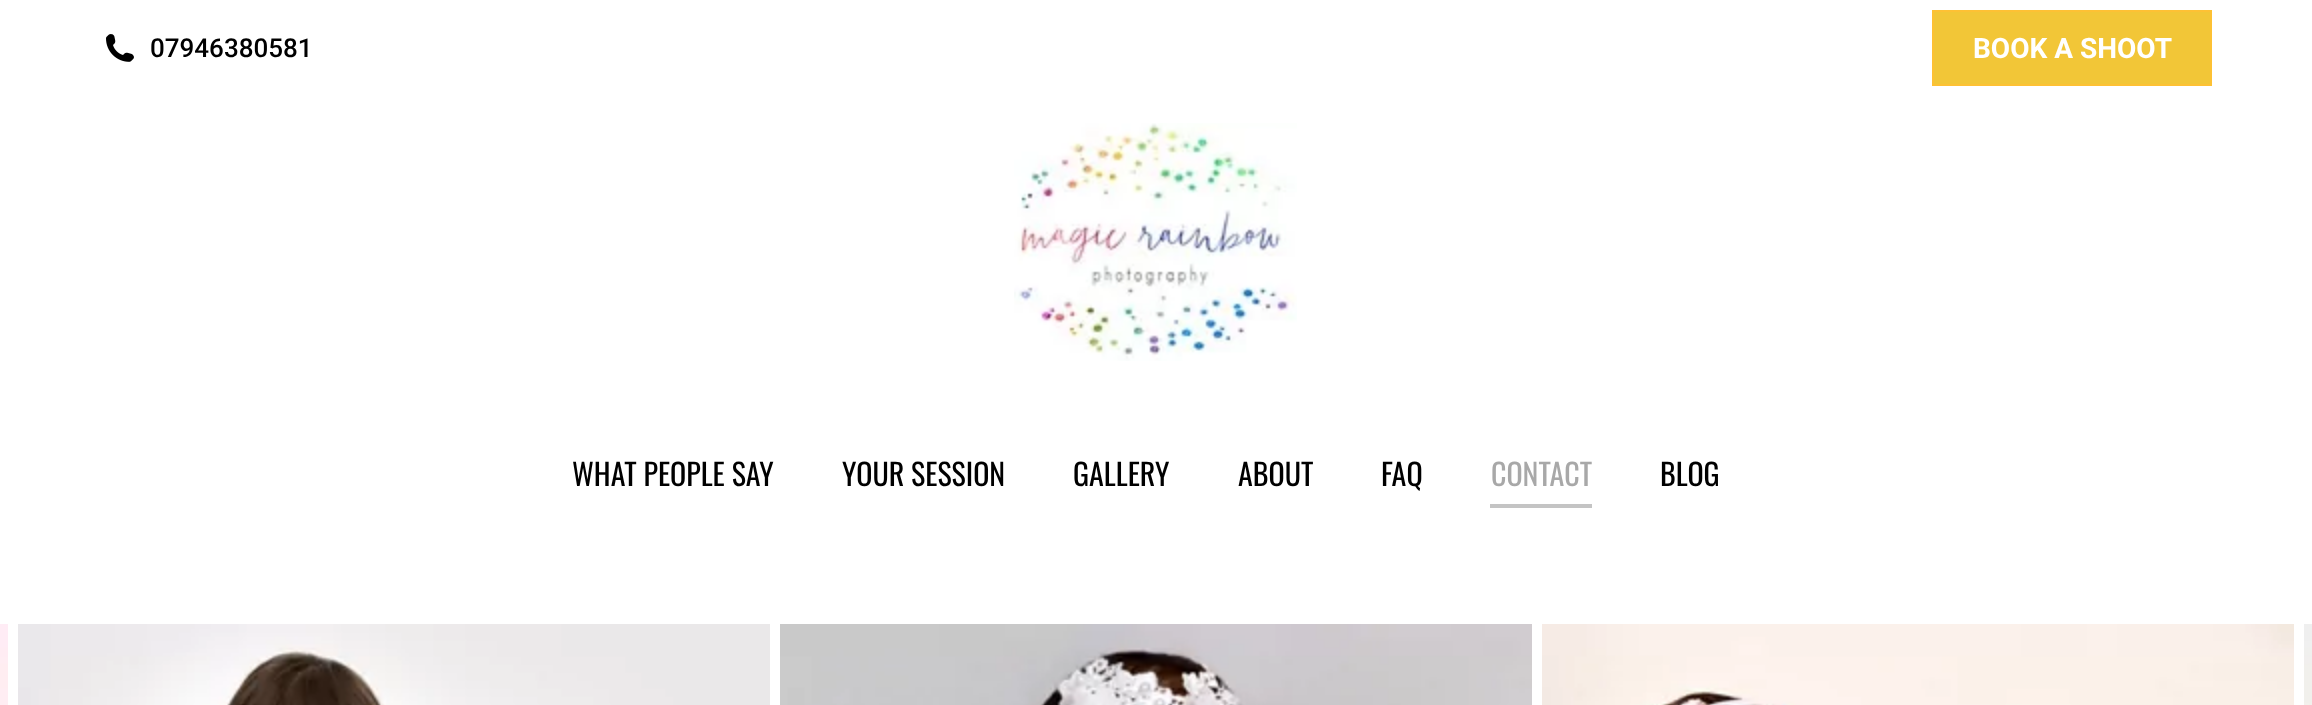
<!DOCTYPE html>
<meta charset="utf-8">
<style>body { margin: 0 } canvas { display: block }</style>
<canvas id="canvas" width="2312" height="705"></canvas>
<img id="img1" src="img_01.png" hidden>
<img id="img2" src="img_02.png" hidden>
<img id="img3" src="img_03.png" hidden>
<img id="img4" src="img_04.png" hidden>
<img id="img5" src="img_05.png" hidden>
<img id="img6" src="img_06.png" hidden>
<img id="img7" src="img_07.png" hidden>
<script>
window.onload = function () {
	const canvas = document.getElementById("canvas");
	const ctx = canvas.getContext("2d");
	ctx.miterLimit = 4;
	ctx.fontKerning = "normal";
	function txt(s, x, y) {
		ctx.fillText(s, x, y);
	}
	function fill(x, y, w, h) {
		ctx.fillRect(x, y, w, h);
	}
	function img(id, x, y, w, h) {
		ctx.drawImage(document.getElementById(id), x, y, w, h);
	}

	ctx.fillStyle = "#FFFFFF";
	fill(0, 0, 2312, 705);
	img("img1", 106, 34, 28, 28);
	ctx.fillStyle = "#F2C637";
	ctx.beginPath();
	ctx.rect(1933, 11, 278, 74);
	ctx.fill();
	ctx.strokeStyle = "#FDC134";
	ctx.lineWidth = 2;
	ctx.stroke();
	img("img2", 1014, 123, 283, 238);
	ctx.fillStyle = "#C4C4C4";
	fill(1490, 504, 102, 4);
	img("img3", 0, 624, 8, 81);
	img("img4", 18, 624, 752, 81);
	img("img5", 780, 624, 752, 81);
	img("img6", 1542, 624, 752, 81);
	img("img7", 2304, 624, 8, 81);
	ctx.font = "500 26px Roboto";
	ctx.fillStyle = "#000000";
	txt("07946380581", 150, 57);
	ctx.font = "bold 28px Roboto";
	ctx.fillStyle = "#FFFFFF";
	txt("BOOK A SHOOT", 1973, 58);
	ctx.font = "30px Oswald";
	ctx.fillStyle = "#000000";
	txt("WHAT PEOPLE SAY", 572, 486);
	txt("YOUR SESSION", 842, 486);
	txt("GALLERY", 1073, 486);
	txt("ABOUT", 1238, 486);
	txt("FAQ", 1381, 486);
	ctx.fillStyle = "#A8A8A8";
	txt("CONTACT", 1491, 486);
	ctx.fillStyle = "#000000";
	txt("BLOG", 1660, 486);
};
</script>
